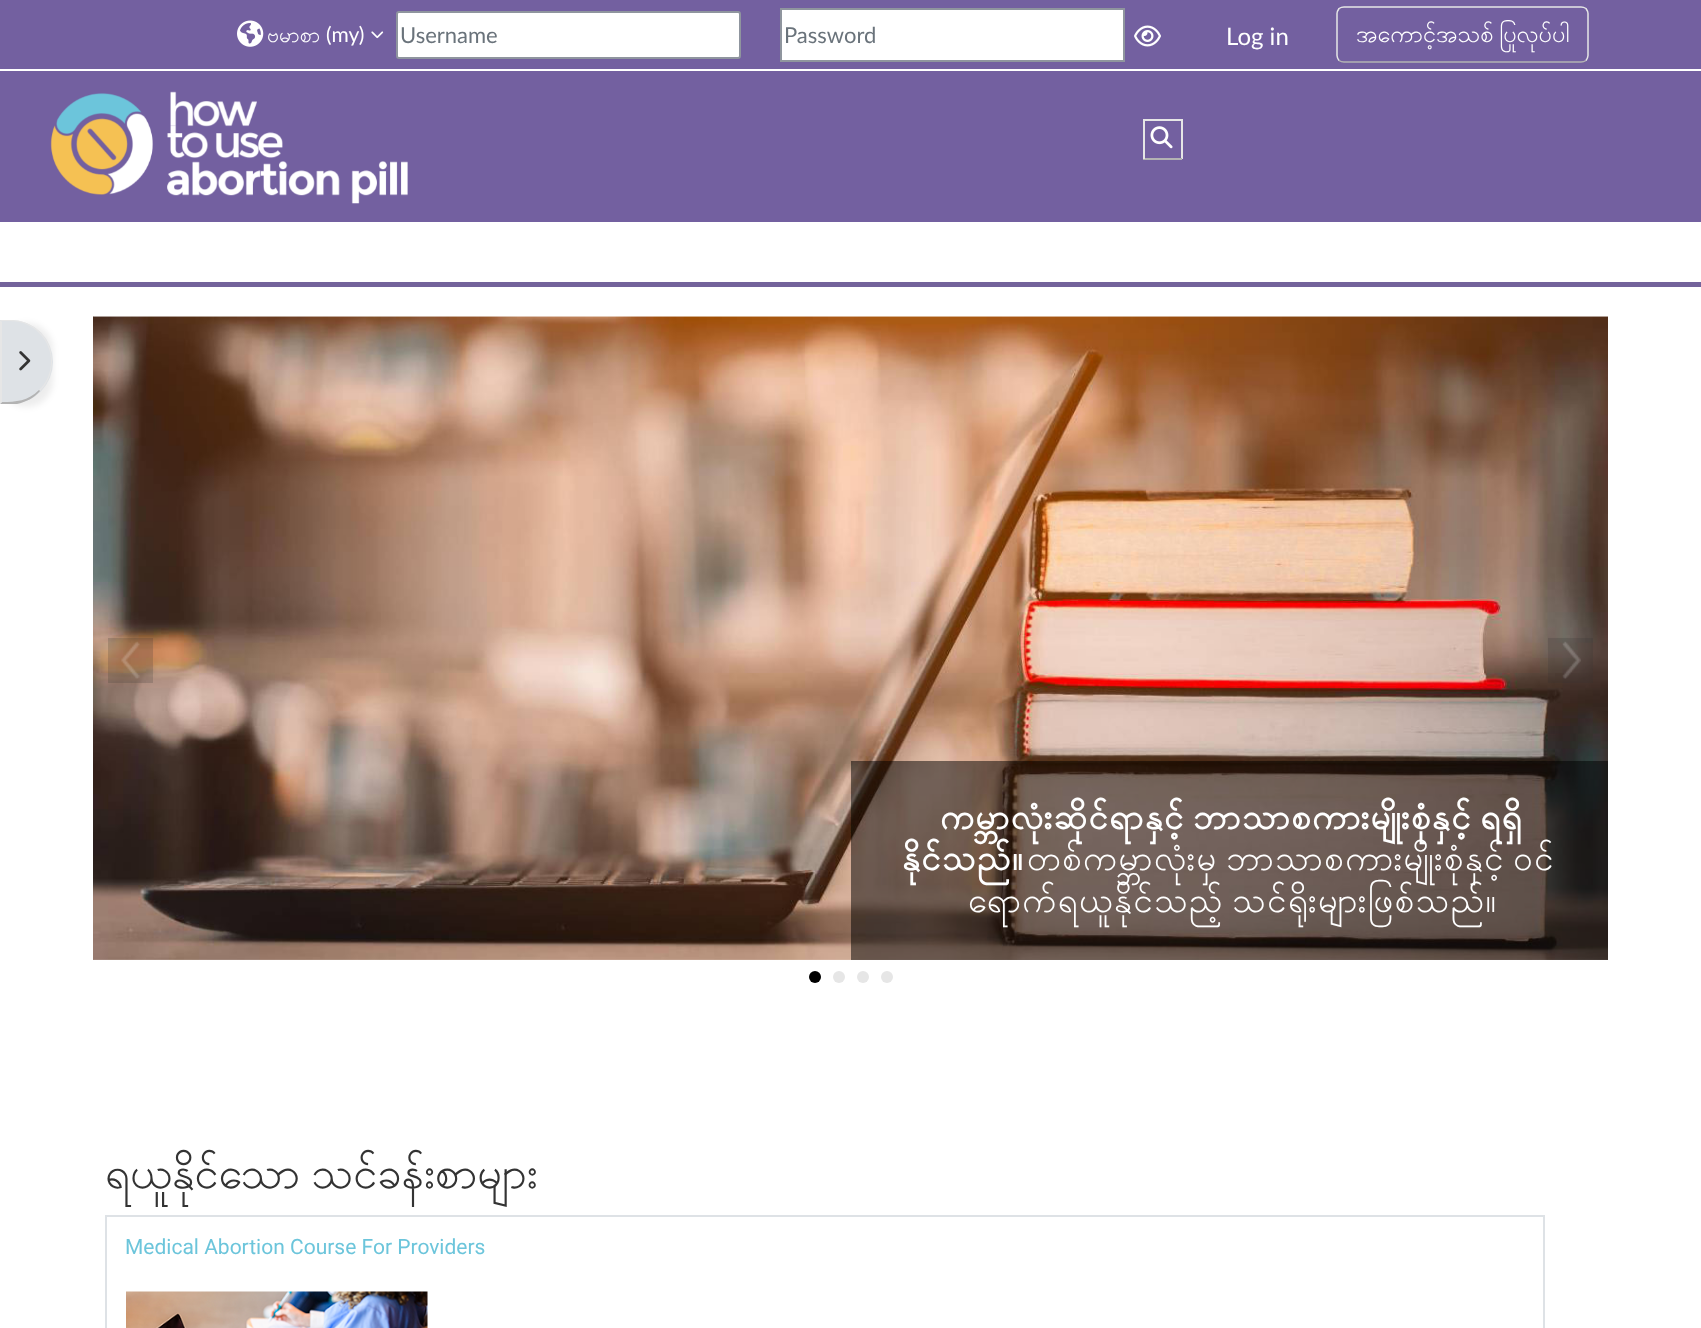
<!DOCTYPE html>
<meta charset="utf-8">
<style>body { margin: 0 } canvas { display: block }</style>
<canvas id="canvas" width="1701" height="1328"></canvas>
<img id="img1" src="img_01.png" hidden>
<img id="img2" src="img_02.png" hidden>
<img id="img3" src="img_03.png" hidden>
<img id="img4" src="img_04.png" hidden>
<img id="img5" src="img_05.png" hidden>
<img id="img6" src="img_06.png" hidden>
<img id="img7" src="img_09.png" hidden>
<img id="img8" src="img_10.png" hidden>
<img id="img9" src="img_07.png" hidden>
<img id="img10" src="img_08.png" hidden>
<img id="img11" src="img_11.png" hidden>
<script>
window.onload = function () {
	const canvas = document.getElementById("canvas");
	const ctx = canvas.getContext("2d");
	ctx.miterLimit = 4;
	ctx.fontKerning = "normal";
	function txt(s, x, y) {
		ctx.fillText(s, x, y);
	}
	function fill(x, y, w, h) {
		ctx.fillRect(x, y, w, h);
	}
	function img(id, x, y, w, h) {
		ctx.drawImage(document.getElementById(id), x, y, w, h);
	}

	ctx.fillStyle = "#FFFFFF";
	fill(0, 0, 1701, 1328);
	ctx.fillStyle = "#7360A0";
	fill(0, 0, 1701, 222);
	ctx.fillStyle = "#FFFFFF";
	fill(0, 69, 1701, 2);
	img("img1", 237, 20, 27, 27);
	img("img2", 371, 31, 13, 8);
	ctx.beginPath();
	ctx.roundRect(397, 12, 343, 46, 2);
	ctx.fill();
	ctx.strokeStyle = "#8F959E";
	ctx.lineWidth = 2;
	ctx.stroke();
	ctx.beginPath();
	ctx.rect(781, 9, 343, 52);
	ctx.fill();
	ctx.stroke();
	img("img3", 1134, 25, 27, 22);
	ctx.beginPath();
	ctx.moveTo(1586, 60.5);
	ctx.bezierCurveTo(1584.5, 61.5, 1583, 62, 1581, 62);
	ctx.lineTo(1344, 62);
	ctx.bezierCurveTo(1342, 62, 1340.5, 61.5, 1339, 60.5);
	ctx.strokeStyle = "#B3B3B3";
	ctx.lineWidth = 1.5;
	ctx.stroke();
	ctx.beginPath();
	ctx.moveTo(1339, 60.5);
	ctx.bezierCurveTo(1338, 59, 1337, 57.5, 1337, 55.5);
	ctx.lineTo(1337, 13.5);
	ctx.bezierCurveTo(1337, 11.5, 1338, 10, 1339, 8.5);
	ctx.bezierCurveTo(1340.5, 7.5, 1342, 7, 1344, 7);
	ctx.lineTo(1581, 7);
	ctx.bezierCurveTo(1583, 7, 1584.5, 7.5, 1586, 8.5);
	ctx.bezierCurveTo(1587, 10, 1588, 11.5, 1588, 13.5);
	ctx.lineTo(1588, 55.5);
	ctx.bezierCurveTo(1588, 57.5, 1587, 59, 1586, 60.5);
	ctx.strokeStyle = "#E6E6E6";
	ctx.stroke();
	img("img4", 50, 91, 358, 113);
	ctx.fillStyle = "#E6E6E6";
	fill(1143, 119, 39, 2);
	fill(1181, 119, 2, 40);
	ctx.fillStyle = "#B3B3B3";
	fill(1143, 158, 39, 2);
	ctx.fillStyle = "#E6E6E6";
	fill(1143, 119, 2, 40);
	img("img5", 1150, 126, 23, 23);
	ctx.fillStyle = "#73639B";
	fill(0, 282, 1701, 5);
	ctx.fillStyle = "rgba(0, 0, 0, 0.07)";
	ctx.filter = "blur(3px)";
	ctx.beginPath();
	ctx.roundRect(0, 323, 53, 84, 42);
	ctx.fill();
	ctx.filter = "none";
	ctx.fillStyle = "#DEE2E6";
	ctx.beginPath();
	ctx.roundRect(0, 320, 53, 84, [0, 42, 42, 0]);
	ctx.fill();
	ctx.fillStyle = "#E6E6E6";
	ctx.beginPath();
	ctx.moveTo(2, 321);
	ctx.lineTo(10, 321);
	ctx.bezierCurveTo(21.5, 321, 32, 325.5, 39, 333);
	ctx.lineTo(40, 332);
	ctx.bezierCurveTo(32.5, 324.5, 22, 320, 10, 320);
	ctx.lineTo(0.5, 320);
	ctx.lineTo(2, 321.5);
	ctx.closePath();
	ctx.fill();
	ctx.beginPath();
	ctx.moveTo(40, 332);
	ctx.bezierCurveTo(56, 348, 56, 375, 40, 391);
	ctx.lineTo(39, 390);
	ctx.bezierCurveTo(55, 375, 55, 348, 39, 333);
	ctx.closePath();
	ctx.fill();
	ctx.fillStyle = "#B3B3B3";
	ctx.beginPath();
	ctx.moveTo(17, 404);
	ctx.lineTo(0, 404);
	ctx.lineTo(2, 402);
	ctx.bezierCurveTo(16, 402, 28, 401, 39, 390);
	ctx.lineTo(40, 391);
	ctx.bezierCurveTo(34, 398, 26, 402, 17, 404);
	ctx.closePath();
	ctx.fill();
	ctx.fillStyle = "#E6E6E6";
	ctx.beginPath();
	ctx.moveTo(0, 404);
	ctx.lineTo(2, 402);
	ctx.lineTo(2, 322);
	ctx.lineTo(0, 320);
	ctx.closePath();
	ctx.fill();
	img("img6", 19, 351, 12, 20);
	img("img7", 93, 316, 1, 644);
	img("img8", 93, 316, 1515, 644);
	ctx.fillStyle = "rgba(51, 51, 51, 0.2)";
	fill(108, 638, 45, 45);
	img("img9", 121, 641, 19, 38);
	fill(1548, 638, 45, 45);
	img("img10", 1562, 641, 19, 38);
	ctx.fillStyle = "rgba(0, 0, 0, 0.5)";
	fill(851, 761, 757, 199);
	ctx.fillStyle = "#000000";
	ctx.beginPath();
	ctx.arc(815, 977, 6, 0, Math.PI * 2);
	ctx.fill();
	ctx.fillStyle = "#E6E6E6";
	ctx.beginPath();
	ctx.arc(839, 977, 6, 0, Math.PI * 2);
	ctx.fill();
	ctx.beginPath();
	ctx.arc(863, 977, 6, 0, Math.PI * 2);
	ctx.fill();
	ctx.beginPath();
	ctx.arc(887, 977, 6, 0, Math.PI * 2);
	ctx.fill();
	ctx.strokeStyle = "#DEE2E6";
	ctx.lineWidth = 2;
	ctx.strokeRect(106, 1216, 1438, 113);
	img("img11", 126, 1291, 302, 37);
	ctx.font = "21px Padauk";
	ctx.fillStyle = "#FFFFFF";
	txt("ဗမာစာ", 267, 42);
	ctx.font = "21px Lato";
	txt("(my)", 326, 42);
	ctx.font = "22px Lato";
	ctx.fillStyle = "#6A737B";
	txt("Username", 400, 43);
	txt("Password", 784, 43);
	ctx.font = "24px Lato";
	ctx.fillStyle = "#FFFFFF";
	txt("Log in", 1226, 45);
	ctx.wordSpacing = "-3px";
	ctx.font = "23.5px Padauk";
	txt("အကောင့်အသစ် ပြုလုပ်ပါ", 1356, 42);
	ctx.letterSpacing = "1.5px";
	ctx.wordSpacing = "-6px";
	ctx.font = "bold 34.6px Padauk";
	txt("ကမ္ဘာလုံးဆိုင်ရာနှင့် ဘာသာစကားမျိုးစုံနှင့် ရရှိ", 940, 829);
	ctx.wordSpacing = "0px";
	txt("နိုင်သည်။", 902, 870);
	ctx.wordSpacing = "-6px";
	ctx.font = "34.6px Padauk";
	txt("တစ်ကမ္ဘာလုံးမှ ဘာသာစကားမျိုးစုံနှင့် ဝင်", 1027, 870);
	txt("ရောက်ရယူနိုင်သည့် သင်ရိုးများဖြစ်သည်။", 968, 912);
	ctx.letterSpacing = "0px";
	ctx.wordSpacing = "-5px";
	ctx.font = "43.4px Padauk";
	ctx.fillStyle = "#333333";
	txt("ရယူနိုင်သော သင်ခန်းစာများ", 105, 1188);
	ctx.wordSpacing = "0px";
	ctx.font = "21px Roboto";
	ctx.fillStyle = "#6CC5DB";
	txt("Medical Abortion Course For Providers", 125, 1254);
};
</script>
